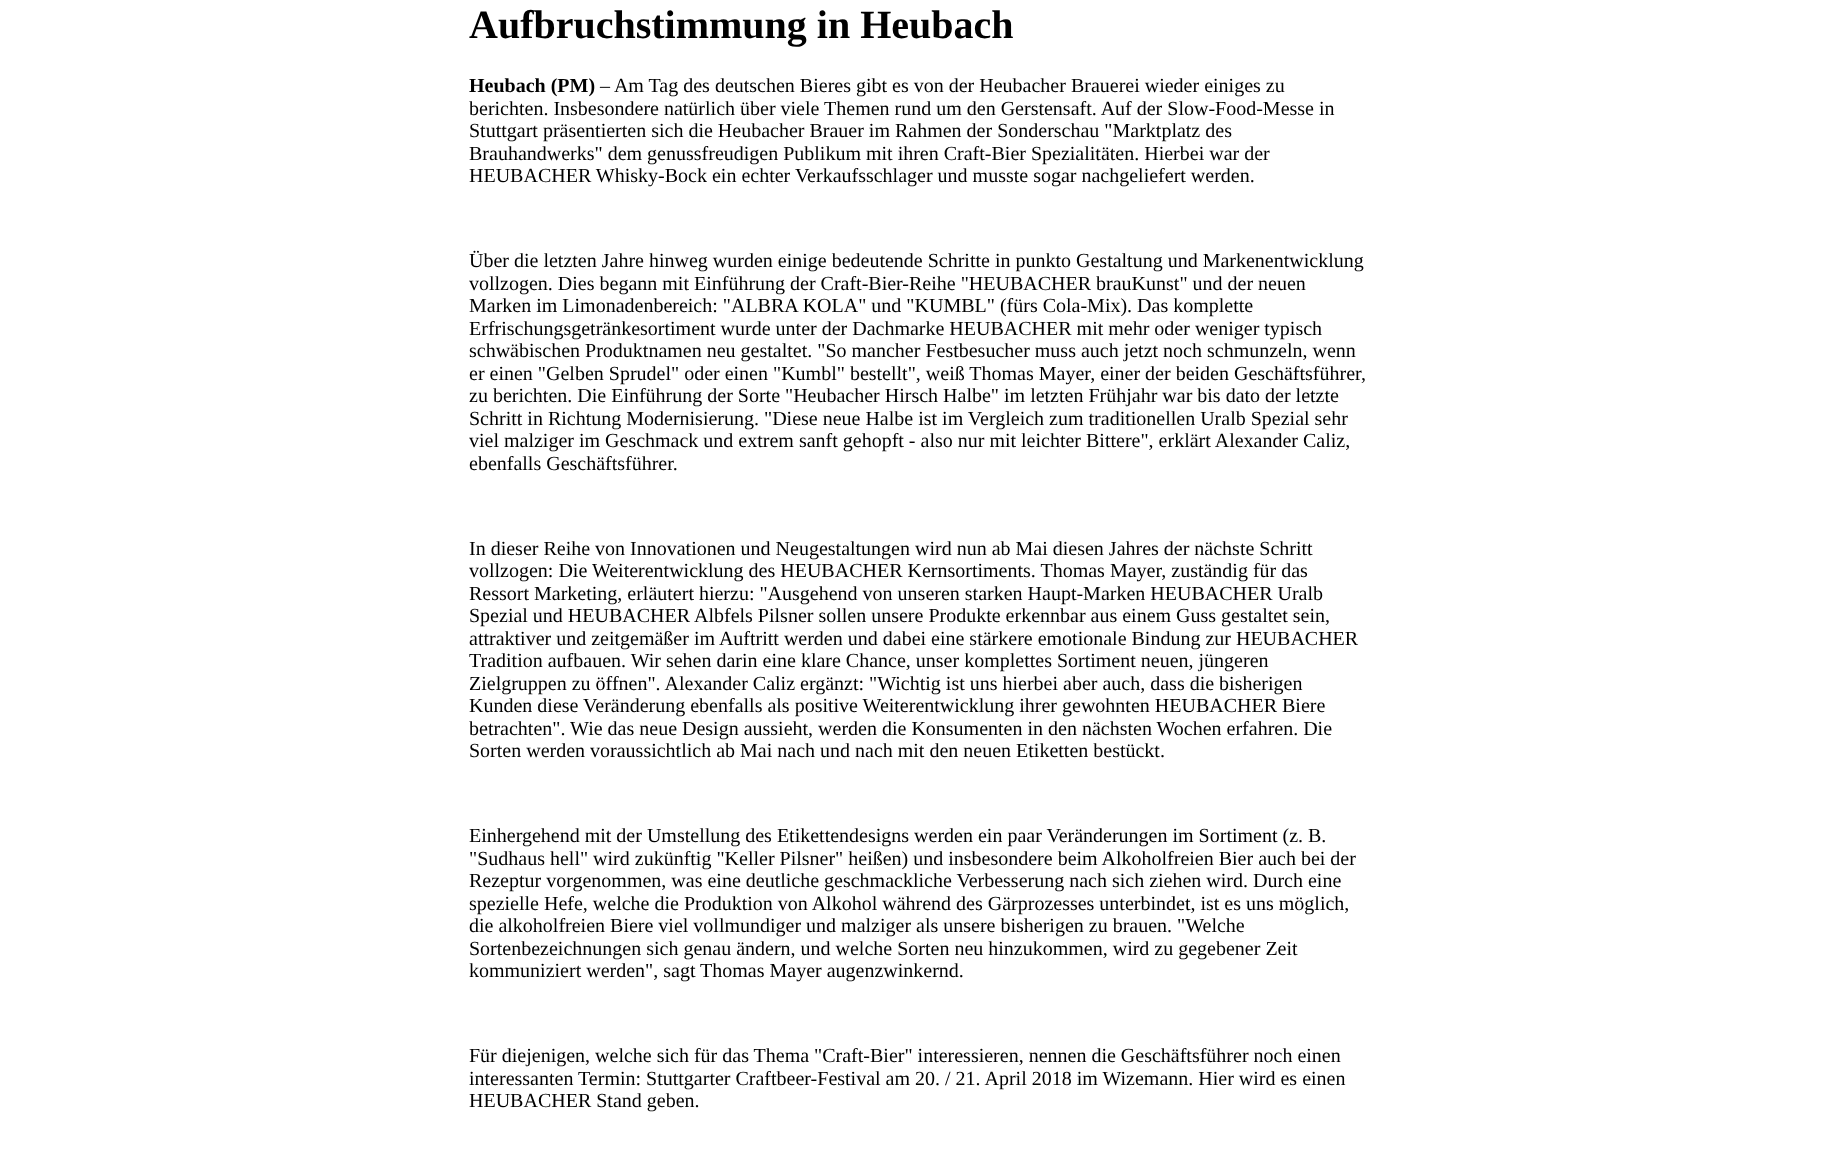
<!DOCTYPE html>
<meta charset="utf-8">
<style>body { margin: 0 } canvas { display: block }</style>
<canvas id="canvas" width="1837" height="1172"></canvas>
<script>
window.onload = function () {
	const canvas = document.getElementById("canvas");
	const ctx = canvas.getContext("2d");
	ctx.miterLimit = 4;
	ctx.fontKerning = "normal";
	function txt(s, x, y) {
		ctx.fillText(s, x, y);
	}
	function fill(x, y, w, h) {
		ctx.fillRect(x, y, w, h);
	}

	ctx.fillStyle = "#FFFFFF";
	fill(0, 0, 1837, 1172);
	ctx.font = "bold 40px Liberation Serif";
	ctx.fillStyle = "#000000";
	txt("Aufbruchstimmung in Heubach", 469, 38);
	ctx.font = "bold 20px Liberation Serif";
	txt("Heubach (PM)", 469, 92);
	ctx.font = "20px Liberation Serif";
	txt("– Am Tag des deutschen Bieres gibt es von der Heubacher Brauerei wieder einiges zu", 600, 92);
	txt("berichten. Insbesondere natürlich über viele Themen rund um den Gerstensaft. Auf der Slow-Food-Messe in", 469, 115);
	txt("Stuttgart präsentierten sich die Heubacher Brauer im Rahmen der Sonderschau \"Marktplatz des", 469, 137);
	txt("Brauhandwerks\" dem genussfreudigen Publikum mit ihren Craft-Bier Spezialitäten. Hierbei war der", 469, 160);
	txt("HEUBACHER Whisky-Bock ein echter Verkaufsschlager und musste sogar nachgeliefert werden.", 469, 182);
	txt("Über die letzten Jahre hinweg wurden einige bedeutende Schritte in punkto Gestaltung und Markenentwicklung", 469, 267);
	txt("vollzogen. Dies begann mit Einführung der Craft-Bier-Reihe \"HEUBACHER brauKunst\" und der neuen", 469, 290);
	txt("Marken im Limonadenbereich: \"ALBRA KOLA\" und \"KUMBL\" (fürs Cola-Mix). Das komplette", 469, 312);
	txt("Erfrischungsgetränkesortiment wurde unter der Dachmarke HEUBACHER mit mehr oder weniger typisch", 469, 335);
	txt("schwäbischen Produktnamen neu gestaltet. \"So mancher Festbesucher muss auch jetzt noch schmunzeln, wenn", 469, 357);
	txt("er einen \"Gelben Sprudel\" oder einen \"Kumbl\" bestellt\", weiß Thomas Mayer, einer der beiden Geschäftsführer,", 469, 380);
	txt("zu berichten. Die Einführung der Sorte \"Heubacher Hirsch Halbe\" im letzten Frühjahr war bis dato der letzte", 469, 402);
	txt("Schritt in Richtung Modernisierung. \"Diese neue Halbe ist im Vergleich zum traditionellen Uralb Spezial sehr", 469, 425);
	txt("viel malziger im Geschmack und extrem sanft gehopft - also nur mit leichter Bittere\", erklärt Alexander Caliz,", 469, 447);
	txt("ebenfalls Geschäftsführer.", 469, 470);
	txt("In dieser Reihe von Innovationen und Neugestaltungen wird nun ab Mai diesen Jahres der nächste Schritt", 469, 555);
	txt("vollzogen: Die Weiterentwicklung des HEUBACHER Kernsortiments. Thomas Mayer, zuständig für das", 469, 577);
	txt("Ressort Marketing, erläutert hierzu: \"Ausgehend von unseren starken Haupt-Marken HEUBACHER Uralb", 469, 600);
	txt("Spezial und HEUBACHER Albfels Pilsner sollen unsere Produkte erkennbar aus einem Guss gestaltet sein,", 469, 622);
	txt("attraktiver und zeitgemäßer im Auftritt werden und dabei eine stärkere emotionale Bindung zur HEUBACHER", 469, 645);
	txt("Tradition aufbauen. Wir sehen darin eine klare Chance, unser komplettes Sortiment neuen, jüngeren", 469, 667);
	txt("Zielgruppen zu öffnen\". Alexander Caliz ergänzt: \"Wichtig ist uns hierbei aber auch, dass die bisherigen", 469, 690);
	txt("Kunden diese Veränderung ebenfalls als positive Weiterentwicklung ihrer gewohnten HEUBACHER Biere", 469, 712);
	txt("betrachten\". Wie das neue Design aussieht, werden die Konsumenten in den nächsten Wochen erfahren. Die", 469, 735);
	txt("Sorten werden voraussichtlich ab Mai nach und nach mit den neuen Etiketten bestückt.", 469, 757);
	txt("Einhergehend mit der Umstellung des Etikettendesigns werden ein paar Veränderungen im Sortiment (z. B.", 469, 842);
	txt("\"Sudhaus hell\" wird zukünftig \"Keller Pilsner\" heißen) und insbesondere beim Alkoholfreien Bier auch bei der", 469, 865);
	txt("Rezeptur vorgenommen, was eine deutliche geschmackliche Verbesserung nach sich ziehen wird. Durch eine", 469, 887);
	txt("spezielle Hefe, welche die Produktion von Alkohol während des Gärprozesses unterbindet, ist es uns möglich,", 469, 910);
	txt("die alkoholfreien Biere viel vollmundiger und malziger als unsere bisherigen zu brauen. \"Welche", 469, 932);
	txt("Sortenbezeichnungen sich genau ändern, und welche Sorten neu hinzukommen, wird zu gegebener Zeit", 469, 955);
	txt("kommuniziert werden\", sagt Thomas Mayer augenzwinkernd.", 469, 977);
	txt("Für diejenigen, welche sich für das Thema \"Craft-Bier\" interessieren, nennen die Geschäftsführer noch einen", 469, 1062);
	txt("interessanten Termin: Stuttgarter Craftbeer-Festival am 20. / 21. April 2018 im Wizemann. Hier wird es einen", 469, 1085);
	txt("HEUBACHER Stand geben.", 469, 1107);
};
</script>
